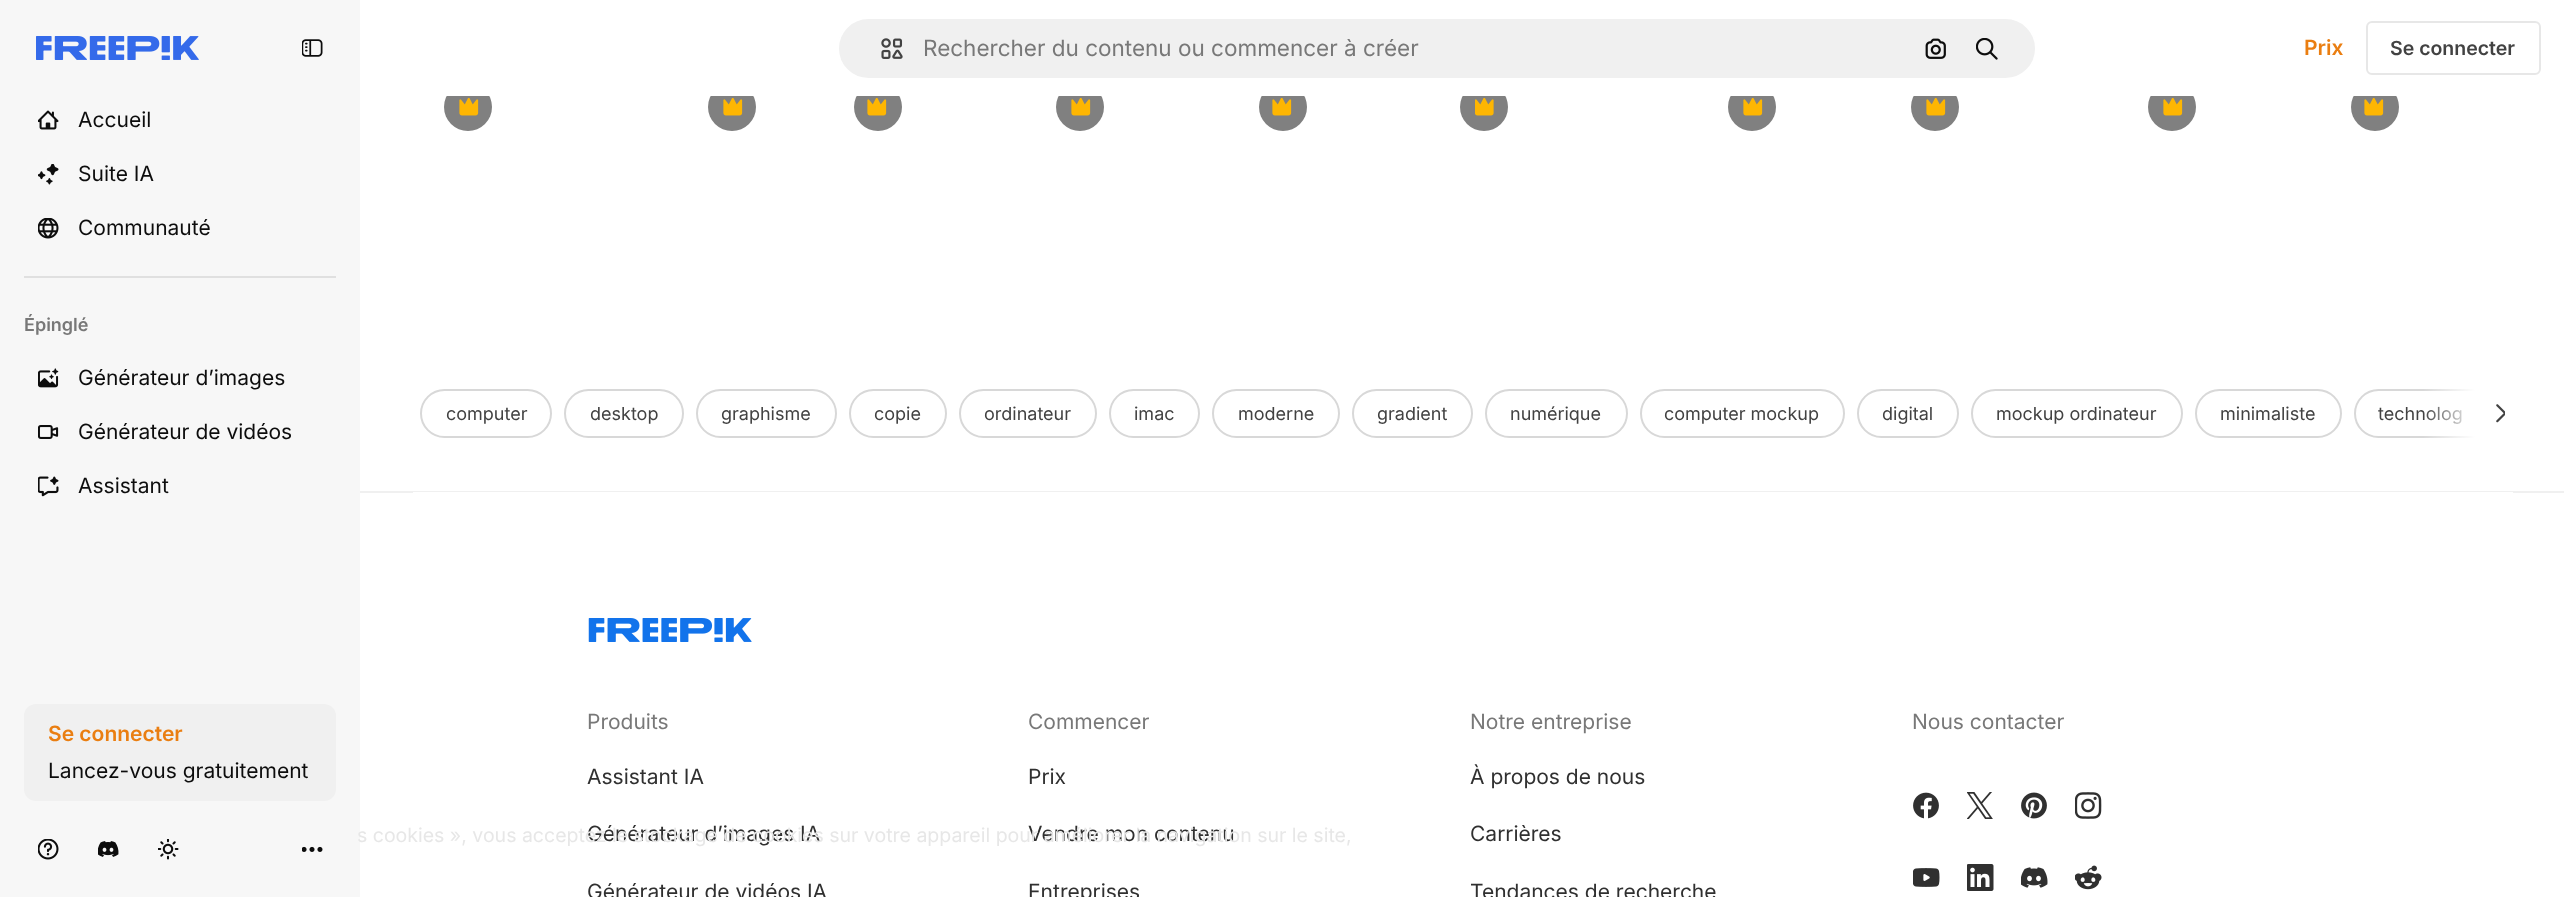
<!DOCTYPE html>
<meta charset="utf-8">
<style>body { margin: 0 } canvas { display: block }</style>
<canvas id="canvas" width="2564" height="897"></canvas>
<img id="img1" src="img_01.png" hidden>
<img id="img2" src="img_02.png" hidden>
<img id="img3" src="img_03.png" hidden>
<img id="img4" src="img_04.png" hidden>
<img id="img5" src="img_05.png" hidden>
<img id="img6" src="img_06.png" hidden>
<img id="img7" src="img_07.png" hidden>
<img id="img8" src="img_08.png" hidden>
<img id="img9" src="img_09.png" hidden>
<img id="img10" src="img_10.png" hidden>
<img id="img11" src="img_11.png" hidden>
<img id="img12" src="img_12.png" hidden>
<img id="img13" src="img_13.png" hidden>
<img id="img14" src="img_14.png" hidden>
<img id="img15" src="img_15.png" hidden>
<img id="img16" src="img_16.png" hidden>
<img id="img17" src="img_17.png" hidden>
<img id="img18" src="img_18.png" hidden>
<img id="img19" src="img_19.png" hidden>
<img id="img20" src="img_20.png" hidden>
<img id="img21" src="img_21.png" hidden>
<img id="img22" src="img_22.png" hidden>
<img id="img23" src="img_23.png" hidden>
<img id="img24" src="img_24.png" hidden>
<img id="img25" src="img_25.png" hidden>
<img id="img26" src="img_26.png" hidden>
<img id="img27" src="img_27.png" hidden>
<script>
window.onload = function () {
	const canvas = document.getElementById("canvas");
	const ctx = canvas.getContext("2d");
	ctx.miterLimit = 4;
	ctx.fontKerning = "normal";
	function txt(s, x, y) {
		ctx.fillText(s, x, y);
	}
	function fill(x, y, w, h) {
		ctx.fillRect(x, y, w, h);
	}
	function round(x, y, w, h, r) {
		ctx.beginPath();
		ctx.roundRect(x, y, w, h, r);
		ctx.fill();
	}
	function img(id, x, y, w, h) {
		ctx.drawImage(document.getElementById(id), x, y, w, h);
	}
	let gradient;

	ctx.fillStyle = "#FFFFFF";
	fill(0, 0, 2564, 897);
	ctx.fillStyle = "#F7F7F7";
	fill(0, 0, 360, 897);
	img("img1", 36, 36, 163, 24);
	img("img2", 302, 39, 21, 18);
	img("img3", 38, 110, 21, 20);
	img("img4", 38, 164, 21, 21);
	img("img5", 38, 218, 21, 21);
	ctx.fillStyle = "#E0E0E0";
	fill(24, 276, 312, 2);
	img("img6", 38, 368, 21, 20);
	img("img7", 38, 425, 21, 14);
	img("img8", 38, 476, 21, 21);
	ctx.fillStyle = "#F0F0F0";
	round(24, 704, 312, 97, 12);
	img("img9", 38, 839, 21, 21);
	img("img10", 98, 841, 21, 16);
	img("img11", 158, 839, 21, 21);
	img("img12", 302, 846, 21, 6);
	ctx.fillStyle = "#808080";
	ctx.beginPath();
	ctx.arc(468, 107, 24, 0, Math.PI * 2);
	ctx.fill();
	ctx.beginPath();
	ctx.arc(732, 107, 24, 0, Math.PI * 2);
	ctx.fill();
	ctx.beginPath();
	ctx.arc(878, 107, 24, 0, Math.PI * 2);
	ctx.fill();
	ctx.beginPath();
	ctx.arc(1080, 107, 24, 0, Math.PI * 2);
	ctx.fill();
	ctx.beginPath();
	ctx.arc(1283, 107, 24, 0, Math.PI * 2);
	ctx.fill();
	ctx.beginPath();
	ctx.arc(1484, 107, 24, 0, Math.PI * 2);
	ctx.fill();
	ctx.beginPath();
	ctx.arc(1752, 107, 24, 0, Math.PI * 2);
	ctx.fill();
	ctx.beginPath();
	ctx.arc(1935, 107, 24, 0, Math.PI * 2);
	ctx.fill();
	ctx.beginPath();
	ctx.arc(2172, 107, 24, 0, Math.PI * 2);
	ctx.fill();
	ctx.beginPath();
	ctx.arc(2375, 107, 24, 0, Math.PI * 2);
	ctx.fill();
	ctx.fillStyle = "#FFFFFF";
	fill(446, 83, 1951, 13);
	ctx.fillStyle = "#F0F0F0";
	ctx.beginPath();
	ctx.roundRect(838, 18, 1198, 61, 30.5);
	ctx.fill();
	ctx.strokeStyle = "#FFFFFF";
	ctx.lineWidth = 2;
	ctx.stroke();
	img("img13", 881, 38, 22, 21);
	img("img14", 1925, 38, 21, 21);
	img("img15", 1976, 38, 22, 22);
	ctx.beginPath();
	ctx.roundRect(2367, 22, 173, 52, 5);
	ctx.strokeStyle = "#E7E7E7";
	ctx.stroke();
	img("img16", 459, 98, 20, 18);
	img("img16", 723, 98, 20, 18);
	img("img16", 867, 98, 20, 18);
	img("img16", 1071, 98, 20, 18);
	img("img16", 1272, 98, 20, 18);
	img("img17", 1475, 98, 19, 18);
	img("img16", 1743, 98, 20, 18);
	img("img16", 1926, 98, 20, 18);
	img("img16", 2163, 98, 20, 18);
	img("img16", 2364, 98, 20, 18);
	ctx.beginPath();
	ctx.roundRect(421, 390, 130, 47, 23.5);
	ctx.strokeStyle = "#D8D8D8";
	ctx.stroke();
	ctx.beginPath();
	ctx.roundRect(565, 390, 118, 47, 23.5);
	ctx.stroke();
	ctx.beginPath();
	ctx.roundRect(697, 390, 139, 47, 23.5);
	ctx.stroke();
	ctx.beginPath();
	ctx.roundRect(850, 390, 96, 47, 23.5);
	ctx.stroke();
	ctx.beginPath();
	ctx.roundRect(960, 390, 136, 47, 23.5);
	ctx.stroke();
	ctx.beginPath();
	ctx.roundRect(1110, 390, 89, 47, 23.5);
	ctx.stroke();
	ctx.beginPath();
	ctx.roundRect(1213, 390, 126, 47, 23.5);
	ctx.stroke();
	ctx.beginPath();
	ctx.roundRect(1353, 390, 119, 47, 23.5);
	ctx.stroke();
	ctx.beginPath();
	ctx.roundRect(1486, 390, 141, 47, 23.5);
	ctx.stroke();
	ctx.beginPath();
	ctx.roundRect(1641, 390, 203, 47, 23.5);
	ctx.stroke();
	ctx.beginPath();
	ctx.roundRect(1858, 390, 100, 47, 23.5);
	ctx.stroke();
	ctx.beginPath();
	ctx.roundRect(1972, 390, 210, 47, 23.5);
	ctx.stroke();
	ctx.beginPath();
	ctx.roundRect(2196, 390, 145, 47, 23.5);
	ctx.stroke();
	ctx.beginPath();
	ctx.roundRect(2355, 390, 148, 47, 23.5);
	ctx.stroke();
	ctx.fillStyle = "#FFFFFF";
	fill(2475, 389, 29, 49);
	img("img18", 2496, 404, 9, 19);
	ctx.fillStyle = "#F0F0F0";
	fill(360, 491, 2204, 2);
	ctx.fillStyle = "#FFFFFF";
	fill(413, 492, 2100, 1);
	img("img19", 588, 618, 164, 24);
	img("img20", 1913, 792, 26, 27);
	img("img21", 1967, 792, 26, 27);
	img("img22", 2021, 792, 26, 27);
	img("img23", 2075, 792, 27, 27);
	img("img24", 1913, 868, 27, 19);
	img("img25", 1967, 864, 27, 27);
	img("img26", 2021, 867, 27, 21);
	img("img27", 2075, 865, 27, 25);
	ctx.font = "21px Inter";
	ctx.fillStyle = "#0D0D0D";
	txt("Accueil", 78, 127);
	txt("Suite IA", 78, 181);
	txt("Communauté", 78, 235);
	ctx.font = "600 18px Inter";
	ctx.fillStyle = "#787878";
	txt("Épinglé", 24, 331);
	ctx.font = "21px Inter";
	ctx.fillStyle = "#0D0D0D";
	txt("Générateur d’images", 78, 385);
	txt("Générateur de vidéos", 78, 439);
	txt("Assistant", 78, 493);
	ctx.font = "600 21px Inter";
	ctx.fillStyle = "#EA7E11";
	txt("Se connecter", 48, 741);
	ctx.font = "21px Inter";
	ctx.fillStyle = "#0D0D0D";
	txt("Lancez-vous gratuitement", 48, 778);
	ctx.font = "22.5px Inter";
	ctx.fillStyle = "#787878";
	txt("Rechercher du contenu ou commencer à créer", 923, 56);
	ctx.font = "600 21px Inter";
	ctx.fillStyle = "#EA7E11";
	txt("Prix", 2304, 55);
	ctx.font = "600 19.5px Inter";
	ctx.fillStyle = "#424242";
	txt("Se connecter", 2390, 55);
	ctx.font = "18px Inter";
	txt("computer", 446, 420);
	txt("desktop", 590, 420);
	txt("graphisme", 721, 420);
	txt("copie", 874, 420);
	txt("ordinateur", 984, 420);
	txt("imac", 1134, 420);
	txt("moderne", 1238, 420);
	txt("gradient", 1377, 420);
	txt("numérique", 1510, 420);
	txt("computer mockup", 1664, 420);
	txt("digital", 1882, 420);
	txt("mockup ordinateur", 1996, 420);
	txt("minimaliste", 2220, 420);
	txt("technolog", 2378, 420);
	gradient = ctx.createLinearGradient(2475, 413, 2423, 413);
	gradient.addColorStop(0, "#FFFFFF");
	gradient.addColorStop(1, "rgba(255, 255, 255, 0)");
	ctx.fillStyle = gradient;
	fill(2424, 389, 51, 49);
	ctx.font = "21px Inter";
	ctx.fillStyle = "#787878";
	txt("Produits", 587, 729);
	ctx.fillStyle = "#303030";
	txt("Assistant IA", 587, 784);
	txt("Générateur d’images IA", 587, 841);
	txt("Générateur de vidéos IA", 587, 899);
	ctx.fillStyle = "#787878";
	txt("Commencer", 1028, 729);
	ctx.fillStyle = "#303030";
	txt("Prix", 1028, 784);
	txt("Vendre mon contenu", 1028, 841);
	txt("Entreprises", 1028, 899);
	ctx.fillStyle = "#787878";
	txt("Notre entreprise", 1470, 729);
	ctx.fillStyle = "#303030";
	txt("À propos de nous", 1470, 784);
	txt("Carrières", 1470, 841);
	txt("Tendances de recherche", 1470, 899);
	ctx.fillStyle = "#787878";
	txt("Nous contacter", 1912, 729);
	ctx.font = "19.5px Inter";
	ctx.fillStyle = "#E7E7E7";
	txt("s cookies », vous acceptez le stockage de cookies sur votre appareil pour améliorer la navigation sur le site,", 357, 842);
};
</script>
